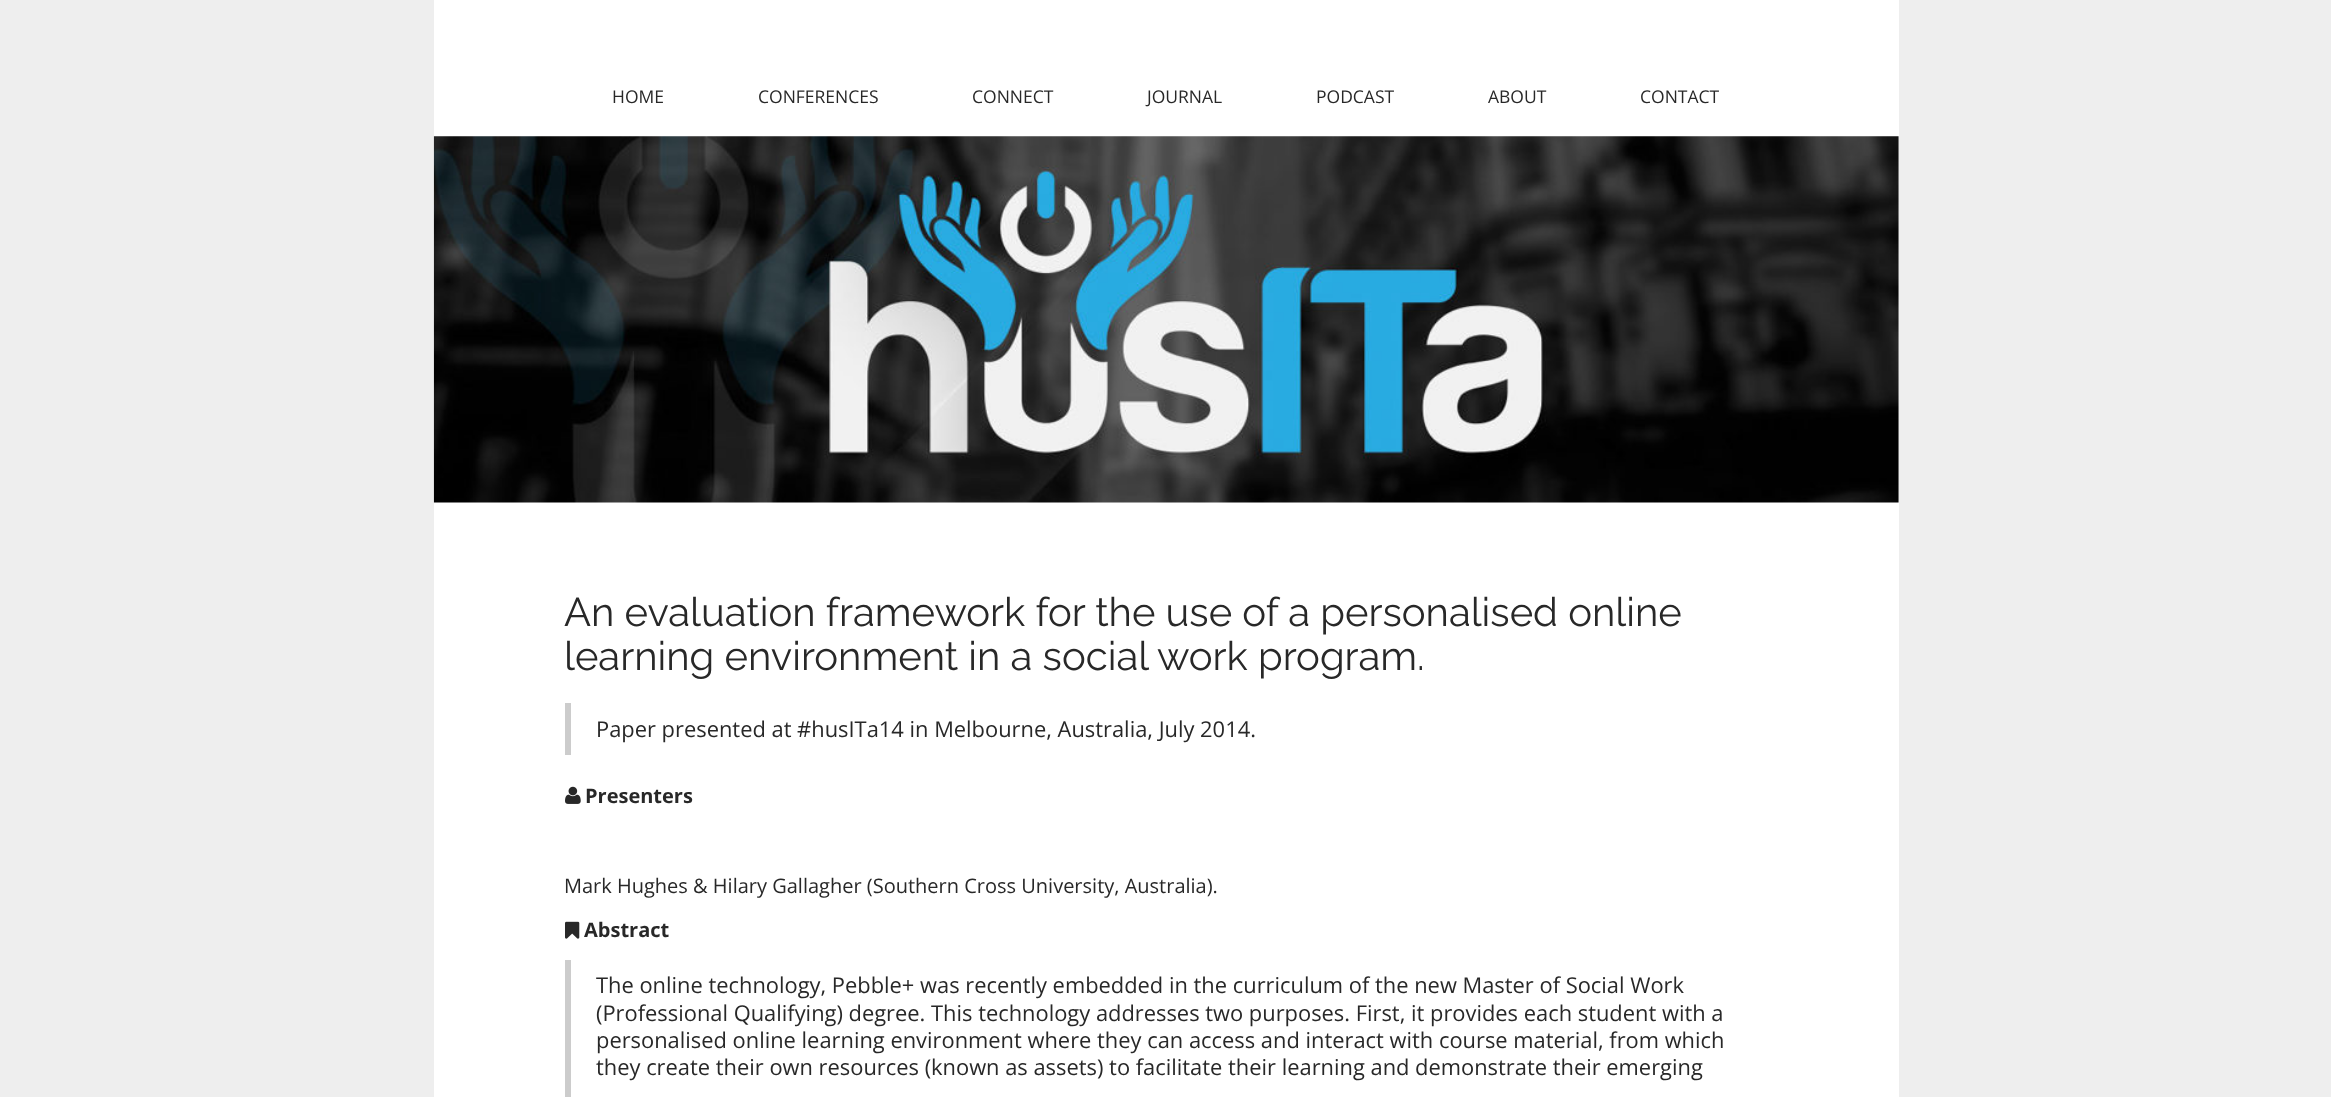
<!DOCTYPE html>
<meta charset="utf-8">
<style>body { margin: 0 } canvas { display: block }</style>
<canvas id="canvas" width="2331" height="1097"></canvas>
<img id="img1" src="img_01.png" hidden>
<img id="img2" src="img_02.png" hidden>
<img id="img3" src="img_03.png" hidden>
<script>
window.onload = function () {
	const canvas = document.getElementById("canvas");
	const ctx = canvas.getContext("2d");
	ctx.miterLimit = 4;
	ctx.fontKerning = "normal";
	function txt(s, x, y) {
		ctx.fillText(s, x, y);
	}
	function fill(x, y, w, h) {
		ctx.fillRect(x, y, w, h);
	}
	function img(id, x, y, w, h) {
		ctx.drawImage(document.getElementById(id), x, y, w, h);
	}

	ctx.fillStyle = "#EEEEEE";
	fill(0, 0, 2331, 1097);
	ctx.fillStyle = "#FFFFFF";
	fill(434, 0, 1465, 1097);
	img("img1", 433, 136, 1466, 367);
	ctx.fillStyle = "#CCCCCC";
	fill(565, 703, 6, 52);
	img("img2", 565, 786, 16, 18);
	img("img3", 565, 921, 15, 18);
	fill(565, 960, 6, 137);
	ctx.font = "17.5px Open Sans";
	ctx.fillStyle = "#282828";
	txt("HOME", 612, 103);
	txt("CONFERENCES", 758, 103);
	txt("CONNECT", 972, 103);
	txt("JOURNAL", 1147, 103);
	txt("PODCAST", 1316, 103);
	txt("ABOUT", 1488, 103);
	txt("CONTACT", 1640, 103);
	ctx.font = "100 40px Raleway";
	txt("An evaluation framework for the use of a personalised online", 564, 626);
	txt("learning environment in a social work program.", 564, 670);
	ctx.font = "21.88px Open Sans";
	txt("Paper presented at #husITa14 in Melbourne, Australia, July 2014.", 596, 737);
	ctx.font = "bold 20px Open Sans";
	txt("Presenters", 585, 803);
	ctx.font = "20px Open Sans";
	txt("Mark Hughes & Hilary Gallagher (Southern Cross University, Australia).", 564, 893);
	ctx.font = "bold 20px Open Sans";
	txt("Abstract", 584, 937);
	ctx.font = "21.88px Open Sans";
	txt("The online technology, Pebble+ was recently embedded in the curriculum of the new Master of Social Work", 596, 993);
	txt("(Professional Qualifying) degree. This technology addresses two purposes. First, it provides each student with a", 596, 1021);
	txt("personalised online learning environment where they can access and interact with course material, from which", 596, 1048);
	txt("they create their own resources (known as assets) to facilitate their learning and demonstrate their emerging", 596, 1075);
};
</script>
